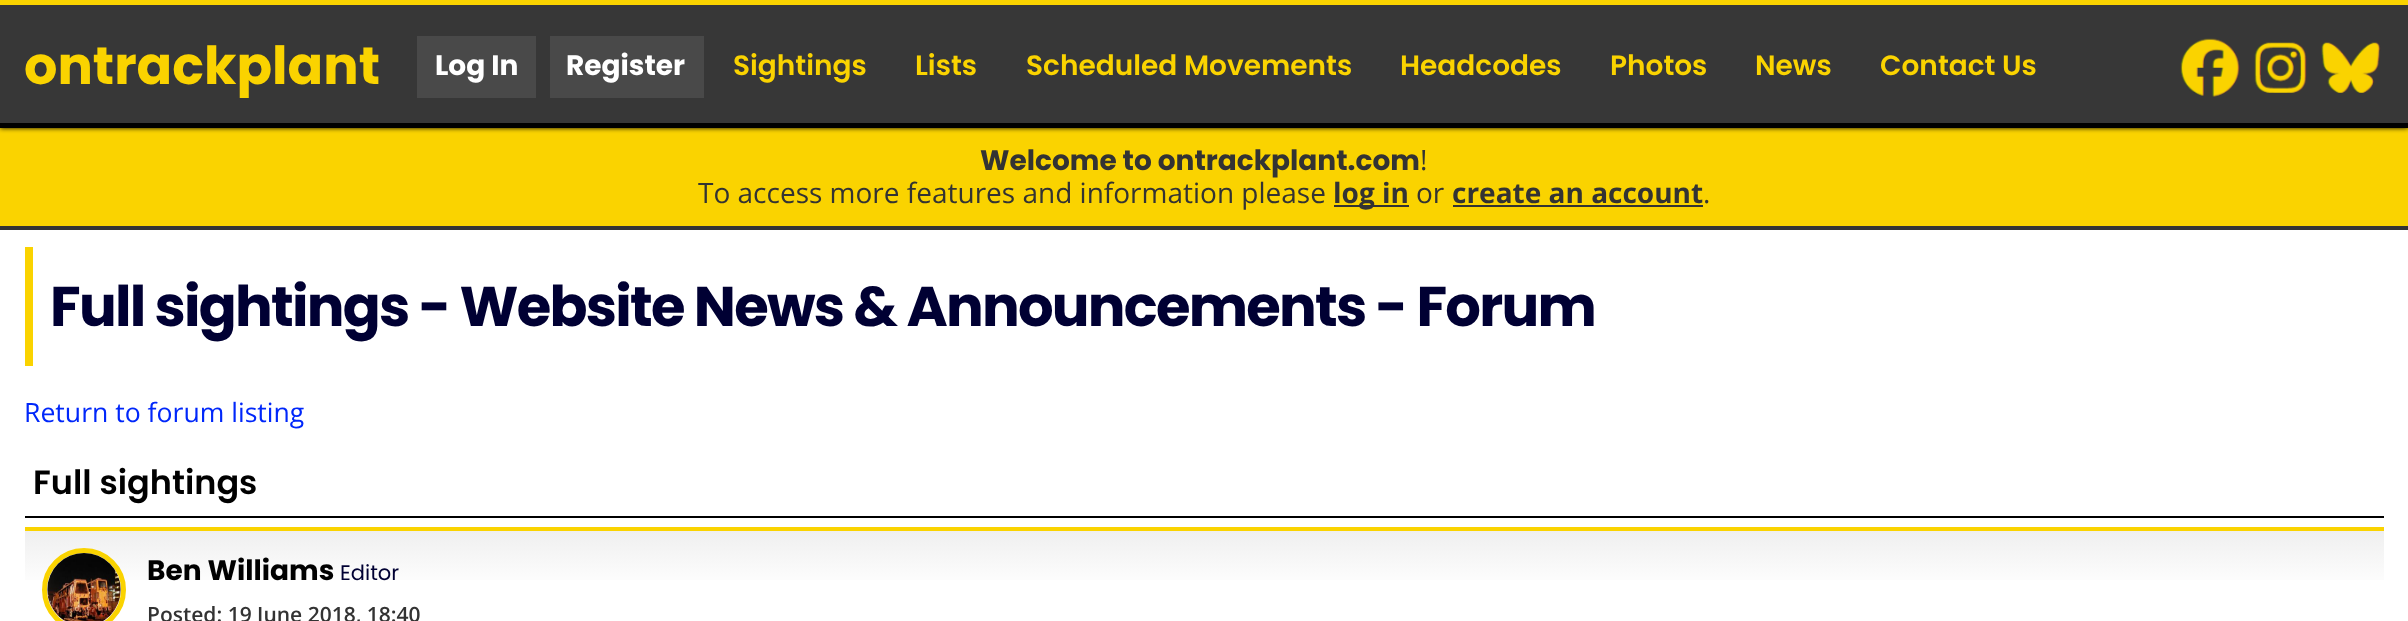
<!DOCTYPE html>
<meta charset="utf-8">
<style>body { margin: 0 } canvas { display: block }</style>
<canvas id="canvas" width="2408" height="621"></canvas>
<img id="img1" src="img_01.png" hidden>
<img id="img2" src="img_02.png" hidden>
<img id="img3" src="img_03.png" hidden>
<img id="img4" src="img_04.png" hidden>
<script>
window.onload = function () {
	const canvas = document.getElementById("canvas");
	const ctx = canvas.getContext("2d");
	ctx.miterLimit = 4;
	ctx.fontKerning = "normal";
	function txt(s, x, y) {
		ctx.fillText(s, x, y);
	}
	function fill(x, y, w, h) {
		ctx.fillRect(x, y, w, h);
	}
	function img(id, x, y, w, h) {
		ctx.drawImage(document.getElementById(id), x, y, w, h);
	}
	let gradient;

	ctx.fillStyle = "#FFFFFF";
	fill(0, 0, 2408, 621);
	ctx.fillStyle = "#FAD300";
	fill(0, 128, 2408, 98);
	ctx.fillStyle = "#000000";
	ctx.filter = "blur(2.5px)";
	ctx.beginPath();
	ctx.rect(0, 0, 2408, 128);
	ctx.fill();
	ctx.filter = "none";
	ctx.fillStyle = "#373737";
	fill(0, 5, 2408, 118);
	ctx.fillStyle = "#FAD300";
	fill(0, 0, 2408, 5);
	ctx.fillStyle = "#000000";
	fill(0, 123, 2408, 5);
	ctx.fillStyle = "#494949";
	fill(417, 36, 119, 62);
	fill(550, 36, 154, 62);
	img("img1", 2180, 38, 60, 59);
	img("img2", 2254, 42, 53, 51);
	img("img3", 2321, 42, 60, 51);
	ctx.fillStyle = "#333333";
	fill(0, 226, 2408, 4);
	fill(1334, 205, 75, 2);
	fill(1453, 205, 250, 2);
	ctx.fillStyle = "#FAD300";
	fill(25, 247, 8, 119);
	ctx.fillStyle = "#000000";
	fill(25, 516, 2359, 2);
	gradient = ctx.createLinearGradient(1204, 530, 1204, 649);
	gradient.addColorStop(0, "#EFEFEF");
	gradient.addColorStop(0.5, "#FFFFFF");
	ctx.fillStyle = gradient;
	fill(25, 531, 2359, 49);
	ctx.fillStyle = "#FAD300";
	fill(25, 527, 2359, 4);
	ctx.beginPath();
	ctx.arc(84, 590, 39.5, 0, Math.PI * 2);
	ctx.strokeStyle = "#FAD300";
	ctx.lineWidth = 5;
	ctx.stroke();
	img("img4", 47, 553, 74, 68);
	ctx.font = "bold 52.5px Poppins";
	txt("ontrackplant", 24, 84);
	ctx.font = "bold 28px Poppins";
	ctx.fillStyle = "#FFFFFF";
	txt("Log In", 435, 75);
	txt("Register", 566, 75);
	ctx.font = "600 28px Poppins";
	ctx.fillStyle = "#FAD300";
	txt("Sightings", 733, 75);
	txt("Lists", 915, 75);
	txt("Scheduled Movements", 1026, 75);
	txt("Headcodes", 1400, 75);
	txt("Photos", 1610, 75);
	txt("News", 1755, 75);
	txt("Contact Us", 1880, 75);
	ctx.font = "bold 28px Poppins";
	ctx.fillStyle = "#333333";
	txt("Welcome to ontrackplant.com", 980, 170);
	ctx.font = "28px Open Sans";
	txt("!", 1420, 170);
	txt("To access more features and information please", 698, 203);
	ctx.font = "bold 28px Open Sans";
	txt("log in", 1333, 203);
	ctx.font = "28px Open Sans";
	txt("or", 1416, 203);
	ctx.font = "bold 28px Open Sans";
	txt("create an account", 1452, 203);
	ctx.font = "28px Open Sans";
	txt(".", 1703, 203);
	ctx.letterSpacing = "-1.75px";
	ctx.font = "bold 56px Poppins";
	ctx.fillStyle = "#000033";
	txt("Full sightings - Website News & Announcements - Forum", 50, 326);
	ctx.letterSpacing = "0px";
	ctx.font = "26.6px Open Sans";
	ctx.fillStyle = "#0027FA";
	txt("Return to forum listing", 24, 422);
	ctx.font = "600 33.5px Poppins";
	ctx.fillStyle = "#000000";
	txt("Full sightings", 33, 494);
	ctx.font = "bold 28px Poppins";
	txt("Ben Williams", 147, 580);
	ctx.font = "21px Poppins";
	ctx.fillStyle = "#000033";
	txt("Editor", 340, 580);
	ctx.font = "600 21px Open Sans";
	ctx.fillStyle = "#333333";
	txt("Posted: 19 June 2018, 18:40", 147, 622);
};
</script>
